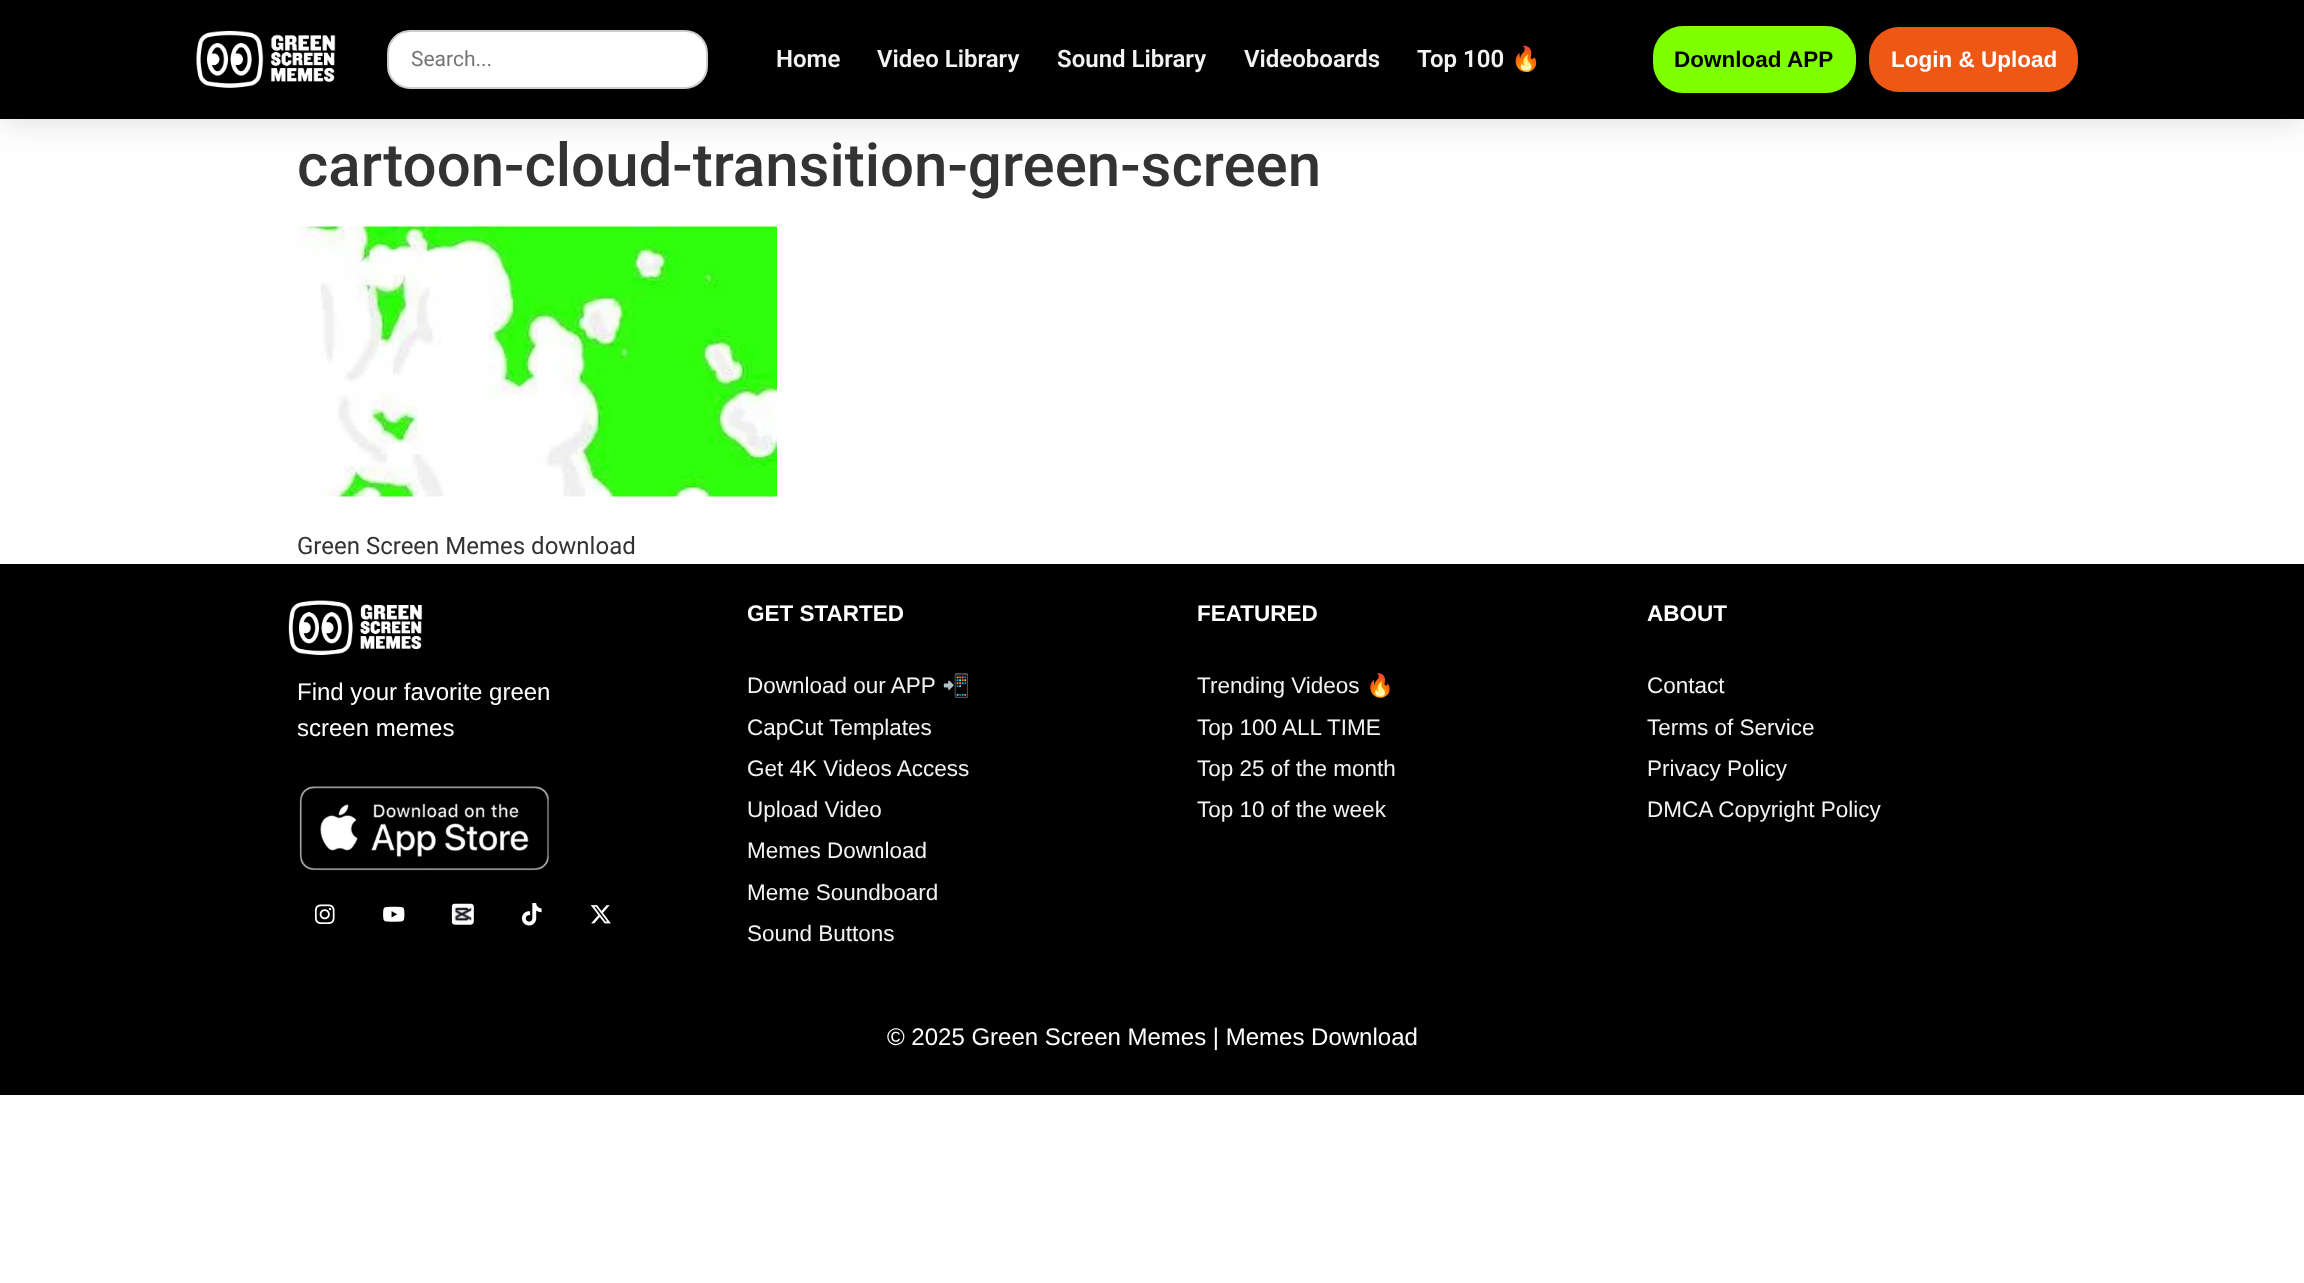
<!DOCTYPE html>
<meta charset="utf-8">
<style>body { margin: 0 } canvas { display: block }</style>
<canvas id="canvas" width="2304" height="1283"></canvas>
<img id="img1" src="img_01.png" hidden>
<img id="img2" src="img_02.png" hidden>
<img id="img3" src="img_03.png" hidden>
<img id="img4" src="img_04.png" hidden>
<img id="img5" src="img_05.png" hidden>
<img id="img6" src="img_06.png" hidden>
<img id="img7" src="img_07.png" hidden>
<img id="img8" src="img_08.png" hidden>
<img id="img9" src="img_09.png" hidden>
<script>
window.onload = function () {
	const canvas = document.getElementById("canvas");
	const ctx = canvas.getContext("2d");
	ctx.miterLimit = 4;
	ctx.fontKerning = "normal";
	function txt(s, x, y) {
		ctx.fillText(s, x, y);
	}
	function fill(x, y, w, h) {
		ctx.fillRect(x, y, w, h);
	}
	function round(x, y, w, h, r) {
		ctx.beginPath();
		ctx.roundRect(x, y, w, h, r);
		ctx.fill();
	}
	function img(id, x, y, w, h) {
		ctx.drawImage(document.getElementById(id), x, y, w, h);
	}

	ctx.fillStyle = "#FFFFFF";
	fill(0, 0, 2304, 1283);
	ctx.fillStyle = "rgba(0, 0, 0, 0.15)";
	ctx.filter = "blur(18px)";
	ctx.beginPath();
	ctx.rect(0, 0, 2304, 119);
	ctx.fill();
	ctx.filter = "none";
	ctx.fillStyle = "#000000";
	fill(0, 0, 2304, 119);
	img("img1", 196, 30, 140, 58);
	ctx.fillStyle = "#FFFFFF";
	ctx.beginPath();
	ctx.roundRect(388, 31, 319, 57, 22);
	ctx.fill();
	ctx.strokeStyle = "#CCCCCC";
	ctx.lineWidth = 2;
	ctx.stroke();
	ctx.fillStyle = "#80FF00";
	round(1653, 26, 203, 67, 30);
	ctx.fillStyle = "#EE5814";
	round(1869, 27, 209, 65, 30);
	img("img2", 297, 226, 480, 271);
	ctx.fillStyle = "#000000";
	fill(0, 564, 2304, 531);
	img("img3", 288, 600, 135, 55);
	img("img4", 299, 786, 250, 85);
	img("img5", 314, 904, 21, 20);
	img("img6", 383, 906, 22, 16);
	img("img7", 451, 903, 23, 22);
	img("img8", 521, 903, 21, 23);
	img("img9", 590, 905, 21, 19);
	ctx.font = "21px Roboto";
	ctx.fillStyle = "#757575";
	txt("Search...", 411, 66);
	ctx.font = "600 24px Roboto";
	ctx.fillStyle = "#F3F3F3";
	txt("Home", 776, 67);
	txt("Video Library", 877, 67);
	txt("Sound Library", 1057, 67);
	txt("Videoboards", 1244, 67);
	txt("Top 100", 1417, 67);
	ctx.font = "24px Noto Color Emoji";
	txt("🔥", 1511, 67);
	ctx.font = "bold 22.5px Liberation Sans";
	ctx.fillStyle = "#000000";
	txt("Download APP", 1674, 67);
	ctx.fillStyle = "#FFFFFF";
	txt("Login & Upload", 1891, 67);
	ctx.font = "500 60px Roboto";
	ctx.fillStyle = "#333333";
	txt("cartoon-cloud-transition-green-screen", 297, 186);
	ctx.font = "24px Roboto";
	txt("Green Screen Memes download", 297, 554);
	ctx.font = "24px Liberation Sans";
	ctx.fillStyle = "#FFFFFF";
	txt("Find your favorite green", 297, 700);
	txt("screen memes", 297, 736);
	ctx.font = "bold 22.5px Liberation Sans";
	txt("GET STARTED", 747, 621);
	ctx.font = "22.5px Liberation Sans";
	ctx.fillStyle = "#F3F3F3";
	txt("Download our APP", 747, 693);
	ctx.font = "22.5px Noto Color Emoji";
	txt("📲", 942, 693);
	ctx.font = "22.5px Liberation Sans";
	txt("CapCut Templates", 747, 735);
	txt("Get 4K Videos Access", 747, 776);
	txt("Upload Video", 747, 817);
	txt("Memes Download", 747, 858);
	txt("Meme Soundboard", 747, 900);
	txt("Sound Buttons", 747, 941);
	ctx.font = "bold 22.5px Liberation Sans";
	ctx.fillStyle = "#FFFFFF";
	txt("FEATURED", 1197, 621);
	ctx.font = "22.5px Liberation Sans";
	ctx.fillStyle = "#F3F3F3";
	txt("Trending Videos", 1197, 693);
	ctx.font = "22.5px Noto Color Emoji";
	txt("🔥", 1366, 693);
	ctx.font = "22.5px Liberation Sans";
	txt("Top 100 ALL TIME", 1197, 735);
	txt("Top 25 of the month", 1197, 776);
	txt("Top 10 of the week", 1197, 817);
	ctx.font = "bold 22.5px Liberation Sans";
	ctx.fillStyle = "#FFFFFF";
	txt("ABOUT", 1647, 621);
	ctx.font = "22.5px Liberation Sans";
	ctx.fillStyle = "#F3F3F3";
	txt("Contact", 1647, 693);
	txt("Terms of Service", 1647, 735);
	txt("Privacy Policy", 1647, 776);
	txt("DMCA Copyright Policy", 1647, 817);
	ctx.font = "24px Liberation Sans";
	ctx.fillStyle = "#FFFFFF";
	txt("© 2025 Green Screen Memes | Memes Download", 887, 1045);
};
</script>
